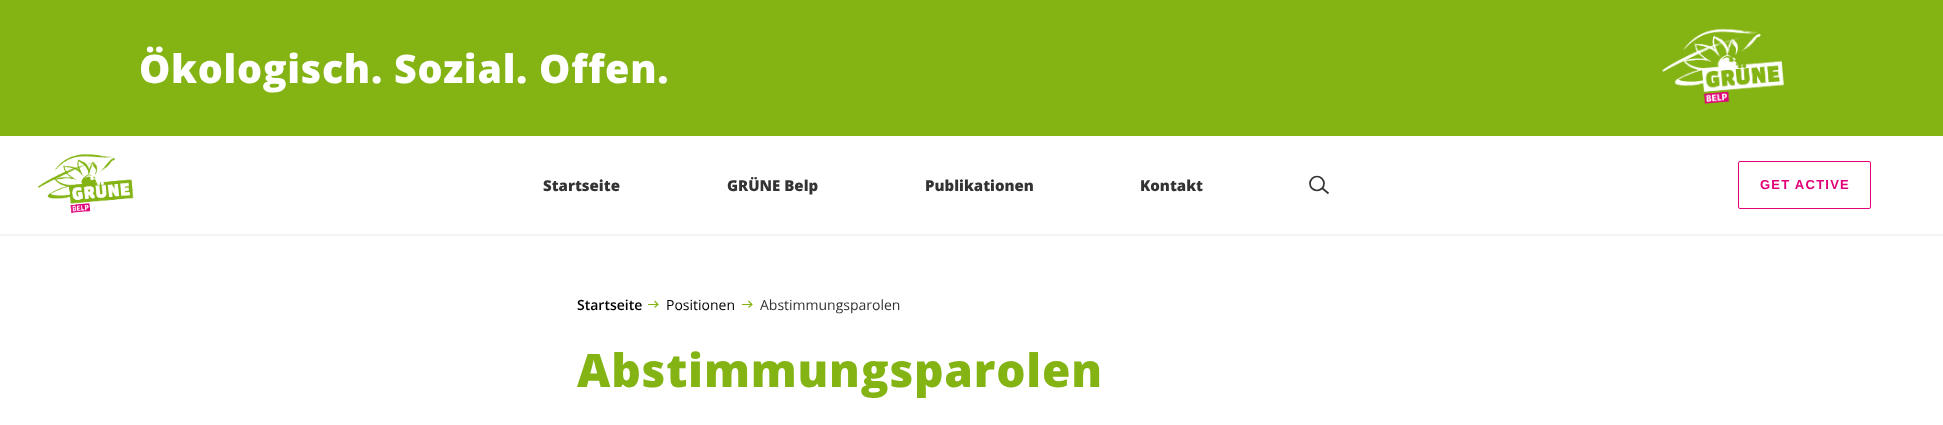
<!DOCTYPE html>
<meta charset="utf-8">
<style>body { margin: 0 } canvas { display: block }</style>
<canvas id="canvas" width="1943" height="425"></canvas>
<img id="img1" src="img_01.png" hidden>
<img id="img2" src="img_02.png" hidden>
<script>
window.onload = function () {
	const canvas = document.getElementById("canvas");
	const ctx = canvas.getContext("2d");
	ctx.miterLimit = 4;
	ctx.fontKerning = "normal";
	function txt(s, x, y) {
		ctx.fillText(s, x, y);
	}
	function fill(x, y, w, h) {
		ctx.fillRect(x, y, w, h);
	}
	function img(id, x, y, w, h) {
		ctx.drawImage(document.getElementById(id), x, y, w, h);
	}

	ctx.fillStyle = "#FFFFFF";
	fill(0, 0, 1943, 425);
	ctx.fillStyle = "#84B414";
	fill(0, 0, 1943, 136);
	img("img1", 1662, 28, 122, 76);
	ctx.fillStyle = "#F4F4F4";
	fill(0, 234, 1943, 2);
	img("img2", 38, 154, 96, 59);
	ctx.beginPath();
	ctx.arc(1317, 183.5, 7, 0, Math.PI * 2);
	ctx.strokeStyle = "#333333";
	ctx.lineWidth = 1.7;
	ctx.stroke();
	ctx.beginPath();
	ctx.moveTo(1322, 188);
	ctx.lineTo(1328.5, 193.5);
	ctx.stroke();
	ctx.beginPath();
	ctx.roundRect(1738.5, 161.5, 132, 47, 1.5);
	ctx.strokeStyle = "#E10078";
	ctx.lineWidth = 1;
	ctx.stroke();
	ctx.beginPath();
	ctx.moveTo(654.5, 301);
	ctx.lineTo(658, 304.5);
	ctx.lineTo(654.5, 307.5);
	ctx.moveTo(658, 304.5);
	ctx.lineTo(648, 304.5);
	ctx.strokeStyle = "#84B414";
	ctx.lineWidth = 1.1;
	ctx.stroke();
	ctx.beginPath();
	ctx.moveTo(748.5, 301);
	ctx.lineTo(752, 304.5);
	ctx.lineTo(748.5, 307.5);
	ctx.moveTo(752, 304.5);
	ctx.lineTo(742, 304.5);
	ctx.stroke();
	ctx.letterSpacing = "0.7px";
	ctx.font = "800 39.4px Open Sans";
	ctx.fillStyle = "#FFFFFF";
	txt("Ökologisch. Sozial. Offen.", 139, 83);
	ctx.letterSpacing = "0px";
	ctx.font = "800 15px Open Sans";
	ctx.fillStyle = "#333333";
	txt("Startseite", 543, 191);
	txt("GRÜNE Belp", 727, 191);
	txt("Publikationen", 925, 191);
	txt("Kontakt", 1140, 191);
	ctx.letterSpacing = "1.25px";
	ctx.font = "bold 13px Liberation Sans";
	ctx.fillStyle = "#E10078";
	txt("GET ACTIVE", 1760, 189);
	ctx.letterSpacing = "0px";
	ctx.font = "600 14px Open Sans";
	ctx.fillStyle = "#000000";
	txt("Startseite", 577, 310);
	ctx.font = "14px Open Sans";
	txt("Positionen", 666, 310);
	ctx.fillStyle = "#333333";
	txt("Abstimmungsparolen", 760, 310);
	ctx.letterSpacing = "0.8px";
	ctx.font = "800 46px Open Sans";
	ctx.fillStyle = "#84B414";
	txt("Abstimmungsparolen", 577, 387);
};
</script>
